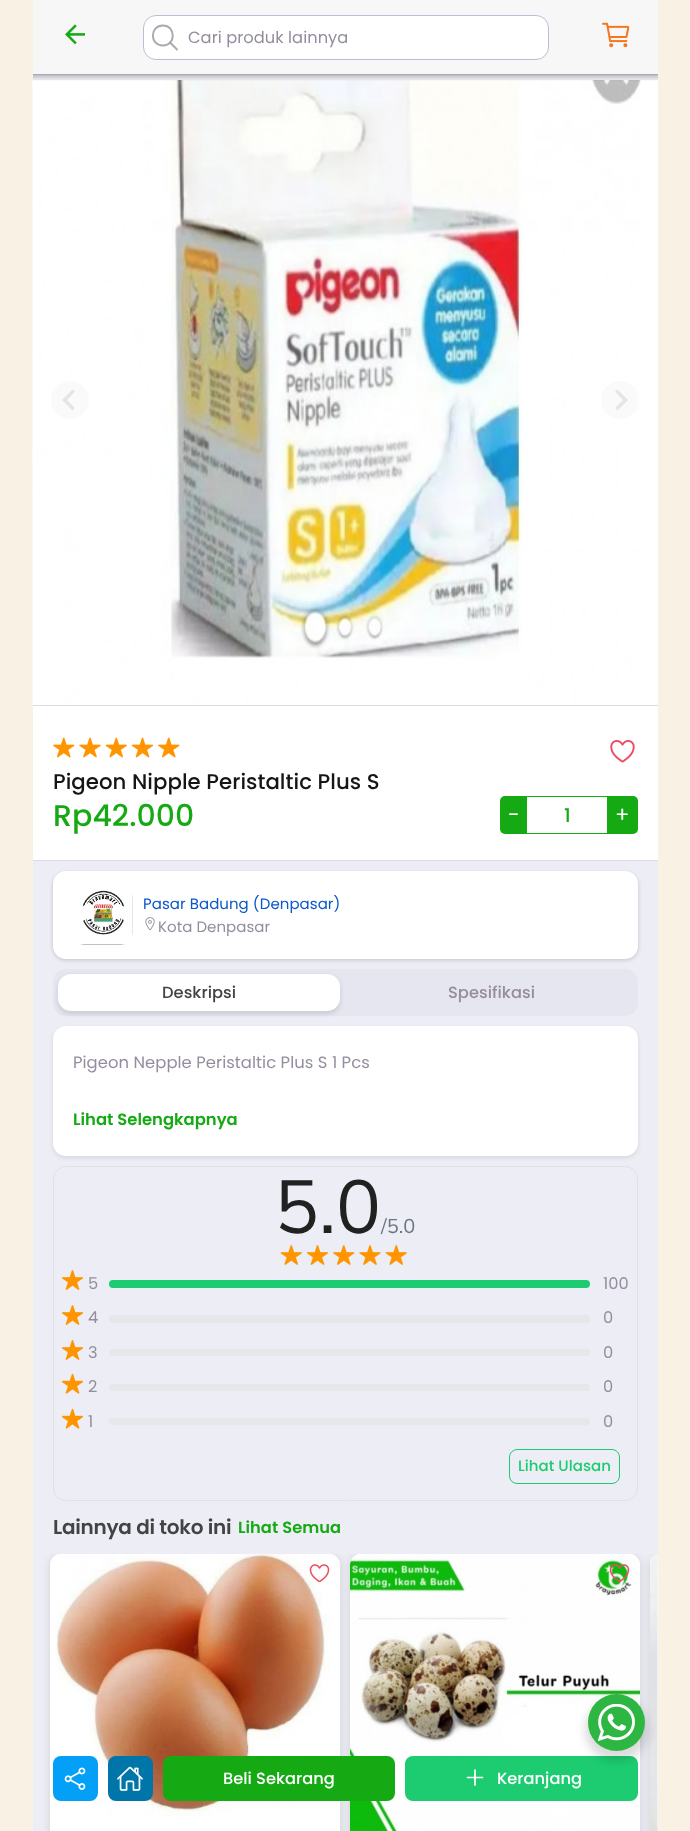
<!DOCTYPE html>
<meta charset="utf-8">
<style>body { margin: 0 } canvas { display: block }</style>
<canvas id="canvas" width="690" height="1831"></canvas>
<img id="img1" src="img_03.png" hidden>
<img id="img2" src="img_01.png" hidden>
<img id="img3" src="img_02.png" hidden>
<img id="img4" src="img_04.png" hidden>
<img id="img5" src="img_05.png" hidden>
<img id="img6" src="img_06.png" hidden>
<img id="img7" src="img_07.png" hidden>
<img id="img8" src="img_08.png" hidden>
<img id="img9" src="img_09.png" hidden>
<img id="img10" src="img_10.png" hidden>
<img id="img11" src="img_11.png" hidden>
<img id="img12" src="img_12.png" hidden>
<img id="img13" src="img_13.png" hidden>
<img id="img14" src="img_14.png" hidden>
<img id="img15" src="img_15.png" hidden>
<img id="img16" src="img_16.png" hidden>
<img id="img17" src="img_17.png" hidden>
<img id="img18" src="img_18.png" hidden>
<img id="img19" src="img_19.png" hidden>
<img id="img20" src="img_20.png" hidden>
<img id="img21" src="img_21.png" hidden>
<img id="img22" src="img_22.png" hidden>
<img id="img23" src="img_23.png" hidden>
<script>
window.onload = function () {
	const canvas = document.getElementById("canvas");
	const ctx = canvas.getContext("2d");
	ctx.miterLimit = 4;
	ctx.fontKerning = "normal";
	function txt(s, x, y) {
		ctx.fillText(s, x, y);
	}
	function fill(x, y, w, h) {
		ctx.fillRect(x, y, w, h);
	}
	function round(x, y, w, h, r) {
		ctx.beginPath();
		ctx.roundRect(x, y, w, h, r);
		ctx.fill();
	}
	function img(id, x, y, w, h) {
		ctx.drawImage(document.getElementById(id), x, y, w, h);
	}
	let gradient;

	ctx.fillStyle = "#F9F1E4";
	fill(0, 0, 690, 1831);
	ctx.fillStyle = "#EDEDF5";
	fill(33, 75, 625, 1756);
	ctx.fillStyle = "#DCDCE9";
	fill(33, 74, 625, 1);
	ctx.fillStyle = "#F7F7F8";
	fill(33, 0, 625, 74);
	img("img1", 32, 80, 609, 625);
	ctx.fillStyle = "#FFFFFF";
	fill(641, 80, 17, 625);
	gradient = ctx.createLinearGradient(345, 74, 345, 84);
	gradient.addColorStop(0, "rgba(0, 0, 0, 0.25)");
	gradient.addColorStop(0.4, "rgba(0, 0, 0, 0.08)");
	gradient.addColorStop(0.5, "rgba(0, 0, 0, 0.04)");
	gradient.addColorStop(0.9, "rgba(0, 0, 0, 0)");
	gradient.addColorStop(1, "rgba(0, 0, 0, 0)");
	ctx.fillStyle = gradient;
	fill(33, 74, 625, 7);
	img("img2", 65, 24, 20, 21);
	ctx.fillStyle = "#FFFFFF";
	ctx.beginPath();
	ctx.roundRect(143.5, 15.5, 405, 44, 12.5);
	ctx.fill();
	ctx.strokeStyle = "#BDBDD5";
	ctx.stroke();
	ctx.beginPath();
	ctx.moveTo(163, 25.5);
	ctx.bezierCurveTo(149.5, 25.5, 149.5, 45.5, 163, 45.5);
	ctx.bezierCurveTo(176, 45.5, 176, 25.5, 163, 25.5);
	ctx.closePath();
	ctx.strokeStyle = "#A9ABAD";
	ctx.lineWidth = 2;
	ctx.stroke();
	ctx.beginPath();
	ctx.moveTo(170, 42.5);
	ctx.lineTo(177, 49.5);
	ctx.lineCap = "round";
	ctx.stroke();
	img("img3", 602, 22, 28, 26);
	ctx.fillStyle = "#FAFAFA";
	ctx.beginPath();
	ctx.arc(70, 400, 19, 0, Math.PI * 2);
	ctx.fill();
	ctx.fillStyle = "#E5E5E5";
	ctx.beginPath();
	ctx.moveTo(72.5, 389.5);
	ctx.lineTo(75, 391.5);
	ctx.lineTo(67, 400);
	ctx.lineTo(75, 408);
	ctx.lineTo(72.5, 410.5);
	ctx.lineTo(62, 400);
	ctx.closePath();
	ctx.fill();
	ctx.fillStyle = "#FAFAFA";
	ctx.beginPath();
	ctx.arc(620, 400, 19, 0, Math.PI * 2);
	ctx.fill();
	ctx.fillStyle = "#E5E5E5";
	ctx.beginPath();
	ctx.moveTo(617.5, 389.5);
	ctx.lineTo(615, 391.5);
	ctx.lineTo(623, 400);
	ctx.lineTo(615, 408);
	ctx.lineTo(617.5, 410.5);
	ctx.lineTo(628, 400);
	ctx.closePath();
	ctx.fill();
	ctx.fillStyle = "#FFFFFF";
	fill(33, 706, 625, 154);
	ctx.fillStyle = "#DCDCE9";
	fill(33, 705, 625, 1);
	fill(33, 860, 625, 1);
	img("img4", 53, 737, 22, 21);
	img("img5", 79, 737, 22, 21);
	img("img6", 105, 737, 22, 21);
	img("img7", 131, 737, 23, 21);
	img("img4", 158, 737, 22, 21);
	img("img8", 610, 740, 25, 23);
	ctx.fillStyle = "#15AA14";
	ctx.beginPath();
	ctx.roundRect(500, 796, 26, 38, [5, 0, 0, 5]);
	ctx.fill();
	ctx.strokeStyle = "#15AA14";
	ctx.lineWidth = 1;
	ctx.strokeRect(526.5, 796.5, 81, 37);
	ctx.beginPath();
	ctx.roundRect(608, 796, 30, 38, [0, 5, 5, 0]);
	ctx.fill();
	ctx.fillStyle = "rgba(0, 0, 0, 0.09)";
	ctx.filter = "blur(2px)";
	ctx.beginPath();
	ctx.roundRect(53, 873, 585, 87, 13);
	ctx.fill();
	ctx.filter = "none";
	ctx.filter = "blur(2px)";
	ctx.beginPath();
	ctx.roundRect(53, 873, 585, 87, 13);
	ctx.fill();
	ctx.filter = "none";
	ctx.fillStyle = "#FFFFFF";
	round(53, 871, 585, 88, 13);
	img("img9", 80, 890, 53, 55);
	img("img10", 145, 917, 10, 14);
	ctx.fillStyle = "#E6E6F0";
	round(53, 969, 585, 47, 13);
	ctx.fillStyle = "rgba(0, 0, 0, 0.12)";
	ctx.filter = "blur(2.5px)";
	ctx.beginPath();
	ctx.roundRect(58, 976, 282, 38, 13);
	ctx.fill();
	ctx.filter = "none";
	ctx.fillStyle = "#FFFFFF";
	round(58, 974, 282, 37, 13);
	ctx.fillStyle = "rgba(0, 0, 0, 0.09)";
	ctx.filter = "blur(2px)";
	ctx.beginPath();
	ctx.roundRect(53, 1028, 585, 130, 13);
	ctx.fill();
	ctx.filter = "none";
	ctx.fillStyle = "#FFFFFF";
	round(53, 1026, 585, 130, 13);
	ctx.beginPath();
	ctx.roundRect(53.5, 1166.5, 584, 334, 12.5);
	ctx.strokeStyle = "#DEE2E6";
	ctx.stroke();
	img("img11", 280, 1245, 22, 20);
	img("img12", 306, 1245, 23, 20);
	img("img13", 333, 1245, 22, 20);
	img("img14", 359, 1245, 22, 20);
	img("img11", 385, 1245, 22, 20);
	img("img12", 61, 1270, 23, 20);
	ctx.fillStyle = "#1DCC70";
	round(109, 1280, 481, 8, 4);
	img("img12", 61, 1305, 23, 20);
	ctx.fillStyle = "#E5E7E9";
	round(109, 1315, 481, 8, 4);
	img("img12", 61, 1340, 23, 20);
	round(109, 1349, 481, 7, 3.5);
	img("img15", 61, 1373, 23, 21);
	round(109, 1384, 481, 7, 3.5);
	img("img15", 61, 1408, 23, 21);
	round(109, 1418, 481, 7, 3.5);
	ctx.beginPath();
	ctx.roundRect(509.5, 1449.5, 110, 34, 7.5);
	ctx.strokeStyle = "#1DCC70";
	ctx.stroke();
	ctx.fillStyle = "#FFFFFF";
	ctx.beginPath();
	ctx.roundRect(50, 1554, 290, 277, [10, 10, 0, 0]);
	ctx.fill();
	ctx.save();
	ctx.beginPath();
	ctx.rect(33, 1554, 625, 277);
	ctx.clip();
	ctx.fillStyle = "rgba(0, 0, 0, 0.12)";
	ctx.filter = "blur(4px)";
	ctx.beginPath();
	ctx.roundRect(50, 1555, 290, 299, 11);
	ctx.fill();
	ctx.filter = "none";
	ctx.restore();
	ctx.beginPath();
	ctx.roundRect(50, 1554, 290, 277, [11, 11, 0, 0]);
	ctx.fill();
	img("img16", 55, 1554, 276, 264);
	img("img17", 309, 1564, 21, 19);
	ctx.beginPath();
	ctx.roundRect(350, 1554, 290, 277, [10, 10, 0, 0]);
	ctx.fill();
	ctx.save();
	ctx.beginPath();
	ctx.rect(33, 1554, 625, 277);
	ctx.clip();
	ctx.fillStyle = "rgba(0, 0, 0, 0.12)";
	ctx.filter = "blur(4px)";
	ctx.beginPath();
	ctx.roundRect(350, 1555, 290, 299, 11);
	ctx.fill();
	ctx.filter = "none";
	ctx.restore();
	ctx.beginPath();
	ctx.roundRect(350, 1554, 290, 277, [11, 11, 0, 0]);
	ctx.fill();
	img("img18", 350, 1554, 290, 277);
	img("img19", 609, 1564, 21, 19);
	ctx.beginPath();
	ctx.roundRect(650, 1554, 8, 277, [10, 0, 0, 0]);
	ctx.fill();
	ctx.save();
	ctx.beginPath();
	ctx.rect(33, 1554, 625, 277);
	ctx.clip();
	ctx.fillStyle = "rgba(0, 0, 0, 0.12)";
	ctx.filter = "blur(4px)";
	ctx.beginPath();
	ctx.roundRect(650, 1555, 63, 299, 11);
	ctx.fill();
	ctx.filter = "none";
	ctx.restore();
	ctx.save();
	ctx.beginPath();
	ctx.roundRect(650, 1554, 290, 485, 11);
	ctx.clip();
	ctx.beginPath();
	ctx.roundRect(650, 1554, 8, 277, [10, 0, 0, 0]);
	ctx.fill();
	ctx.restore();
	img("img20", 650, 1555, 8, 276);
	ctx.fillStyle = "#049FF6";
	round(53, 1756, 45, 45, 8);
	img("img21", 64, 1767, 22, 23);
	ctx.fillStyle = "#0075AA";
	round(108, 1756, 45, 45, 8);
	img("img22", 117, 1766, 26, 25);
	ctx.fillStyle = "#15AA14";
	round(163, 1756, 232, 45, 8);
	ctx.fillStyle = "#1DCC70";
	round(405, 1756, 233, 45, 8);
	ctx.beginPath();
	ctx.moveTo(475, 1770);
	ctx.lineTo(475, 1785);
	ctx.moveTo(482.5, 1777.5);
	ctx.lineTo(467.5, 1777.5);
	ctx.strokeStyle = "#FFFFFF";
	ctx.lineWidth = 1.7;
	ctx.lineJoin = "round";
	ctx.stroke();
	ctx.fillStyle = "rgba(0, 0, 0, 0.14)";
	ctx.filter = "blur(5px)";
	ctx.beginPath();
	ctx.roundRect(585, 1699, 63, 62, 31);
	ctx.fill();
	ctx.filter = "none";
	ctx.fillStyle = "#2DB742";
	ctx.beginPath();
	ctx.arc(616.5, 1722.5, 28.5, 0, Math.PI * 2);
	ctx.fill();
	img("img23", 598, 1704, 37, 37);
	ctx.letterSpacing = "0.05px";
	ctx.font = "16.25px Poppins";
	ctx.fillStyle = "#958D9E";
	txt("Cari produk lainnya", 188, 43);
	ctx.font = "500 21.25px Poppins";
	ctx.fillStyle = "#141515";
	txt("Pigeon Nipple Peristaltic Plus S", 53, 789);
	ctx.font = "500 30px Poppins";
	ctx.fillStyle = "#15AA14";
	txt("Rp42.000", 53, 826);
	ctx.letterSpacing = "0px";
	ctx.font = "21.25px Poppins";
	ctx.fillStyle = "#FFFFFF";
	txt("-", 508, 822);
	ctx.font = "500 19px Poppins";
	ctx.fillStyle = "#15AA14";
	txt("1", 564, 822);
	ctx.font = "21.25px Poppins";
	ctx.fillStyle = "#FFFFFF";
	txt("+", 615, 822);
	ctx.letterSpacing = "0.05px";
	ctx.font = "15px Poppins";
	ctx.fillStyle = "#0A58CA";
	txt("Pasar Badung (Denpasar)", 143, 909);
	ctx.fillStyle = "#958D9E";
	txt("Kota Denpasar", 158, 932);
	ctx.font = "500 16.25px Poppins";
	ctx.fillStyle = "#424345";
	txt("Deskripsi", 162, 998);
	ctx.fillStyle = "#958D9E";
	txt("Spesifikasi", 448, 998);
	ctx.font = "16.4px Poppins";
	txt("Pigeon Nepple Peristaltic Plus S 1 Pcs", 73, 1068);
	ctx.letterSpacing = "0px";
	ctx.font = "600 16.4px Poppins";
	ctx.fillStyle = "#15AA14";
	txt("Lihat Selengkapnya", 73, 1125);
	ctx.font = "75px Nunito Sans";
	ctx.fillStyle = "#212121";
	txt("5.0", 274, 1233);
	ctx.font = "20px Nunito Sans";
	ctx.fillStyle = "#6D7588";
	txt("/5.0", 381, 1233);
	ctx.letterSpacing = "0.05px";
	ctx.font = "16.25px Poppins";
	ctx.fillStyle = "#958D9E";
	txt("5", 88, 1289);
	txt("100", 603, 1289);
	txt("4", 88, 1323);
	txt("0", 603, 1323);
	txt("3", 88, 1358);
	txt("0", 603, 1358);
	txt("2", 88, 1392);
	txt("0", 603, 1392);
	txt("1", 88, 1427);
	txt("0", 603, 1427);
	ctx.font = "500 15px Poppins";
	ctx.fillStyle = "#1DCC70";
	txt("Lihat Ulasan", 518, 1471);
	ctx.letterSpacing = "-0.25px";
	ctx.font = "600 20px Poppins";
	ctx.fillStyle = "#424345";
	txt("Lainnya di toko ini", 53, 1534);
	ctx.letterSpacing = "0.05px";
	ctx.font = "600 16.25px Poppins";
	ctx.fillStyle = "#15AA14";
	txt("Lihat Semua", 238, 1533);
	ctx.letterSpacing = "0px";
	ctx.font = "500 16.25px Poppins";
	ctx.fillStyle = "#FFFFFF";
	txt("Beli Sekarang", 223, 1784);
	txt("Keranjang", 497, 1784);
};
</script>
